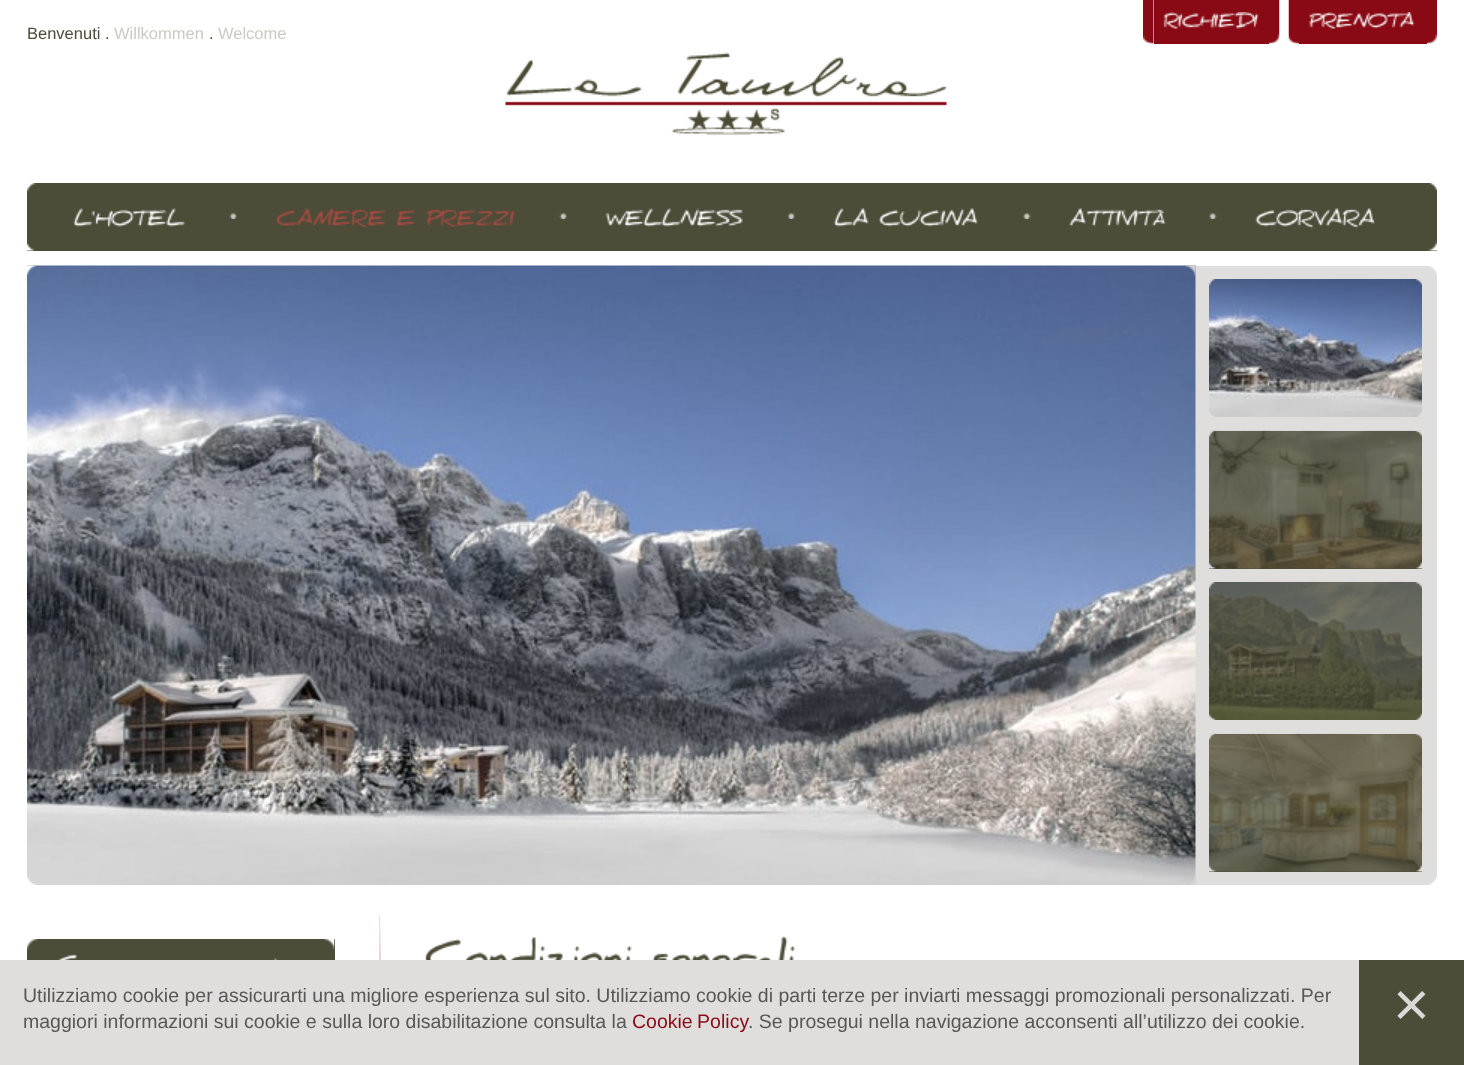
<!DOCTYPE html>
<meta charset="utf-8">
<style>body { margin: 0 } canvas { display: block }</style>
<canvas id="canvas" width="1464" height="1065"></canvas>
<img id="img1" src="img_01.png" hidden>
<img id="img2" src="img_02.png" hidden>
<img id="img3" src="img_03.png" hidden>
<img id="img4" src="img_04.png" hidden>
<img id="img5" src="img_05.png" hidden>
<img id="img6" src="img_06.png" hidden>
<img id="img7" src="img_07.png" hidden>
<img id="img8" src="img_08.png" hidden>
<img id="img9" src="img_09.png" hidden>
<img id="img10" src="img_10.png" hidden>
<img id="img11" src="img_11.png" hidden>
<img id="img12" src="img_12.png" hidden>
<img id="img13" src="img_13.png" hidden>
<img id="img14" src="img_14.png" hidden>
<img id="img15" src="img_15.png" hidden>
<img id="img16" src="img_16.png" hidden>
<img id="img17" src="img_17.png" hidden>
<img id="img18" src="img_18.png" hidden>
<img id="img19" src="img_19.png" hidden>
<img id="img20" src="img_20.png" hidden>
<img id="img21" src="img_21.png" hidden>
<img id="img22" src="img_22.png" hidden>
<img id="img23" src="img_23.png" hidden>
<img id="img24" src="img_24.png" hidden>
<img id="img25" src="img_25.png" hidden>
<img id="img26" src="img_26.png" hidden>
<img id="img27" src="img_27.png" hidden>
<img id="img28" src="img_28.png" hidden>
<img id="img29" src="img_29.png" hidden>
<img id="img30" src="img_30.png" hidden>
<img id="img31" src="img_31.png" hidden>
<img id="img32" src="img_32.png" hidden>
<img id="img33" src="img_33.png" hidden>
<img id="img34" src="img_34.png" hidden>
<img id="img35" src="img_35.png" hidden>
<img id="img36" src="img_36.png" hidden>
<img id="img37" src="img_37.png" hidden>
<img id="img38" src="img_38.png" hidden>
<img id="img39" src="img_39.png" hidden>
<img id="img40" src="img_40.png" hidden>
<img id="img41" src="img_41.png" hidden>
<img id="img42" src="img_42.png" hidden>
<img id="img43" src="img_43.png" hidden>
<img id="img44" src="img_44.png" hidden>
<img id="img45" src="img_45.png" hidden>
<img id="img46" src="img_46.png" hidden>
<img id="img47" src="img_47.png" hidden>
<img id="img48" src="img_48.png" hidden>
<img id="img49" src="img_49.png" hidden>
<img id="img50" src="img_50.png" hidden>
<img id="img51" src="img_51.png" hidden>
<img id="img52" src="img_52.png" hidden>
<img id="img53" src="img_53.png" hidden>
<img id="img54" src="img_54.png" hidden>
<img id="img55" src="img_55.png" hidden>
<img id="img56" src="img_56.png" hidden>
<script>
window.onload = function () {
	const canvas = document.getElementById("canvas");
	const ctx = canvas.getContext("2d");
	ctx.miterLimit = 4;
	ctx.fontKerning = "normal";
	function txt(s, x, y) {
		ctx.fillText(s, x, y);
	}
	function fill(x, y, w, h) {
		ctx.fillRect(x, y, w, h);
	}
	function img(id, x, y, w, h) {
		ctx.drawImage(document.getElementById(id), x, y, w, h);
	}

	ctx.fillStyle = "#FFFFFF";
	fill(0, 0, 1464, 1065);
	img("img1", 1143, 0, 11, 44);
	ctx.fillStyle = "#890A15";
	fill(1154, 0, 115, 44);
	img("img2", 1163, 12, 96, 17);
	img("img3", 1269, 0, 11, 44);
	img("img4", 1288, 0, 11, 44);
	fill(1299, 0, 128, 44);
	img("img5", 1309, 12, 106, 17);
	img("img6", 1426, 0, 11, 44);
	img("img7", 505, 52, 442, 83);
	ctx.fillStyle = "#E0DDDD";
	fill(1195, 266, 242, 619);
	img("img8", 27, 265, 1169, 620);
	img("img9", 27, 265, 10, 11);
	img("img10", 1185, 265, 11, 11);
	img("img11", 1428, 266, 9, 9);
	img("img12", 1209, 279, 213, 138);
	img("img13", 1209, 279, 7, 7);
	img("img14", 1415, 279, 7, 7);
	img("img15", 1209, 412, 6, 5);
	img("img16", 1416, 411, 6, 6);
	ctx.fillStyle = "#4D4C39";
	fill(1209, 431, 213, 138);
	img("img17", 1209, 430, 213, 139);
	img("img18", 1209, 430, 7, 7);
	img("img19", 1415, 430, 7, 7);
	img("img20", 1209, 562, 7, 7);
	img("img21", 1416, 561, 6, 8);
	fill(1209, 582, 213, 138);
	img("img22", 1209, 582, 213, 138);
	img("img23", 1209, 582, 7, 7);
	img("img24", 1415, 582, 7, 7);
	img("img25", 1209, 713, 7, 7);
	img("img26", 1415, 713, 7, 7);
	fill(1209, 734, 213, 138);
	img("img27", 1209, 733, 213, 139);
	img("img28", 1209, 734, 7, 6);
	img("img29", 1415, 733, 7, 7);
	img("img30", 1209, 865, 7, 7);
	img("img31", 1416, 865, 6, 7);
	img("img32", 27, 876, 10, 9);
	img("img33", 1189, 875, 6, 10);
	img("img34", 1428, 876, 9, 9);
	fill(27, 193, 1410, 58);
	img("img35", 27, 183, 1410, 10);
	img("img36", 73, 208, 112, 19);
	img("img37", 229, 213, 8, 6);
	img("img38", 276, 208, 111, 20);
	img("img39", 396, 209, 20, 18);
	img("img40", 426, 209, 89, 19);
	img("img41", 559, 213, 8, 6);
	img("img42", 605, 208, 138, 19);
	img("img37", 787, 213, 8, 6);
	img("img43", 833, 208, 36, 19);
	img("img44", 878, 208, 100, 19);
	img("img45", 1023, 213, 8, 6);
	img("img46", 1069, 208, 97, 19);
	img("img45", 1209, 213, 8, 6);
	img("img47", 1255, 208, 120, 21);
	img("img48", 27, 241, 1410, 10);
	img("img49", 379, 915, 1, 45);
	img("img50", 379, 915, 2, 45);
	fill(41, 939, 294, 21);
	img("img51", 27, 939, 14, 21);
	img("img52", 57, 954, 20, 6);
	img("img53", 274, 958, 4, 2);
	img("img54", 321, 939, 14, 21);
	img("img55", 424, 937, 208, 23);
	img("img56", 652, 936, 144, 24);
	ctx.fillStyle = "#E0DDDD";
	fill(0, 960, 1359, 105);
	ctx.fillStyle = "#4D4C39";
	fill(1359, 960, 105, 105);
	ctx.font = "16.5px Liberation Sans";
	txt("Benvenuti .", 27, 39);
	ctx.fillStyle = "#CBCBC3";
	txt("Willkommen", 114, 39);
	ctx.fillStyle = "#4D4C39";
	txt(".", 209, 39);
	ctx.fillStyle = "#CBCBC3";
	txt("Welcome", 218, 39);
	ctx.font = "19.5px Liberation Sans";
	ctx.fillStyle = "#575757";
	txt("Utilizziamo cookie per assicurarti una migliore esperienza sul sito. Utilizziamo cookie di parti terze per inviarti messaggi promozionali personalizzati. Per", 23, 1002);
	txt("maggiori informazioni sui cookie e sulla loro disabilitazione consulta la", 23, 1028);
	ctx.wordSpacing = "-1px";
	ctx.fillStyle = "#890A15";
	txt("Cookie Policy", 632, 1028);
	ctx.wordSpacing = "0px";
	ctx.fillStyle = "#575757";
	txt(". Se prosegui nella navigazione acconsenti all’utilizzo dei cookie.", 748, 1028);
	ctx.font = "63px Liberation Sans";
	ctx.fillStyle = "#DBD8D8";
	txt("×", 1393, 1026);
};
</script>
